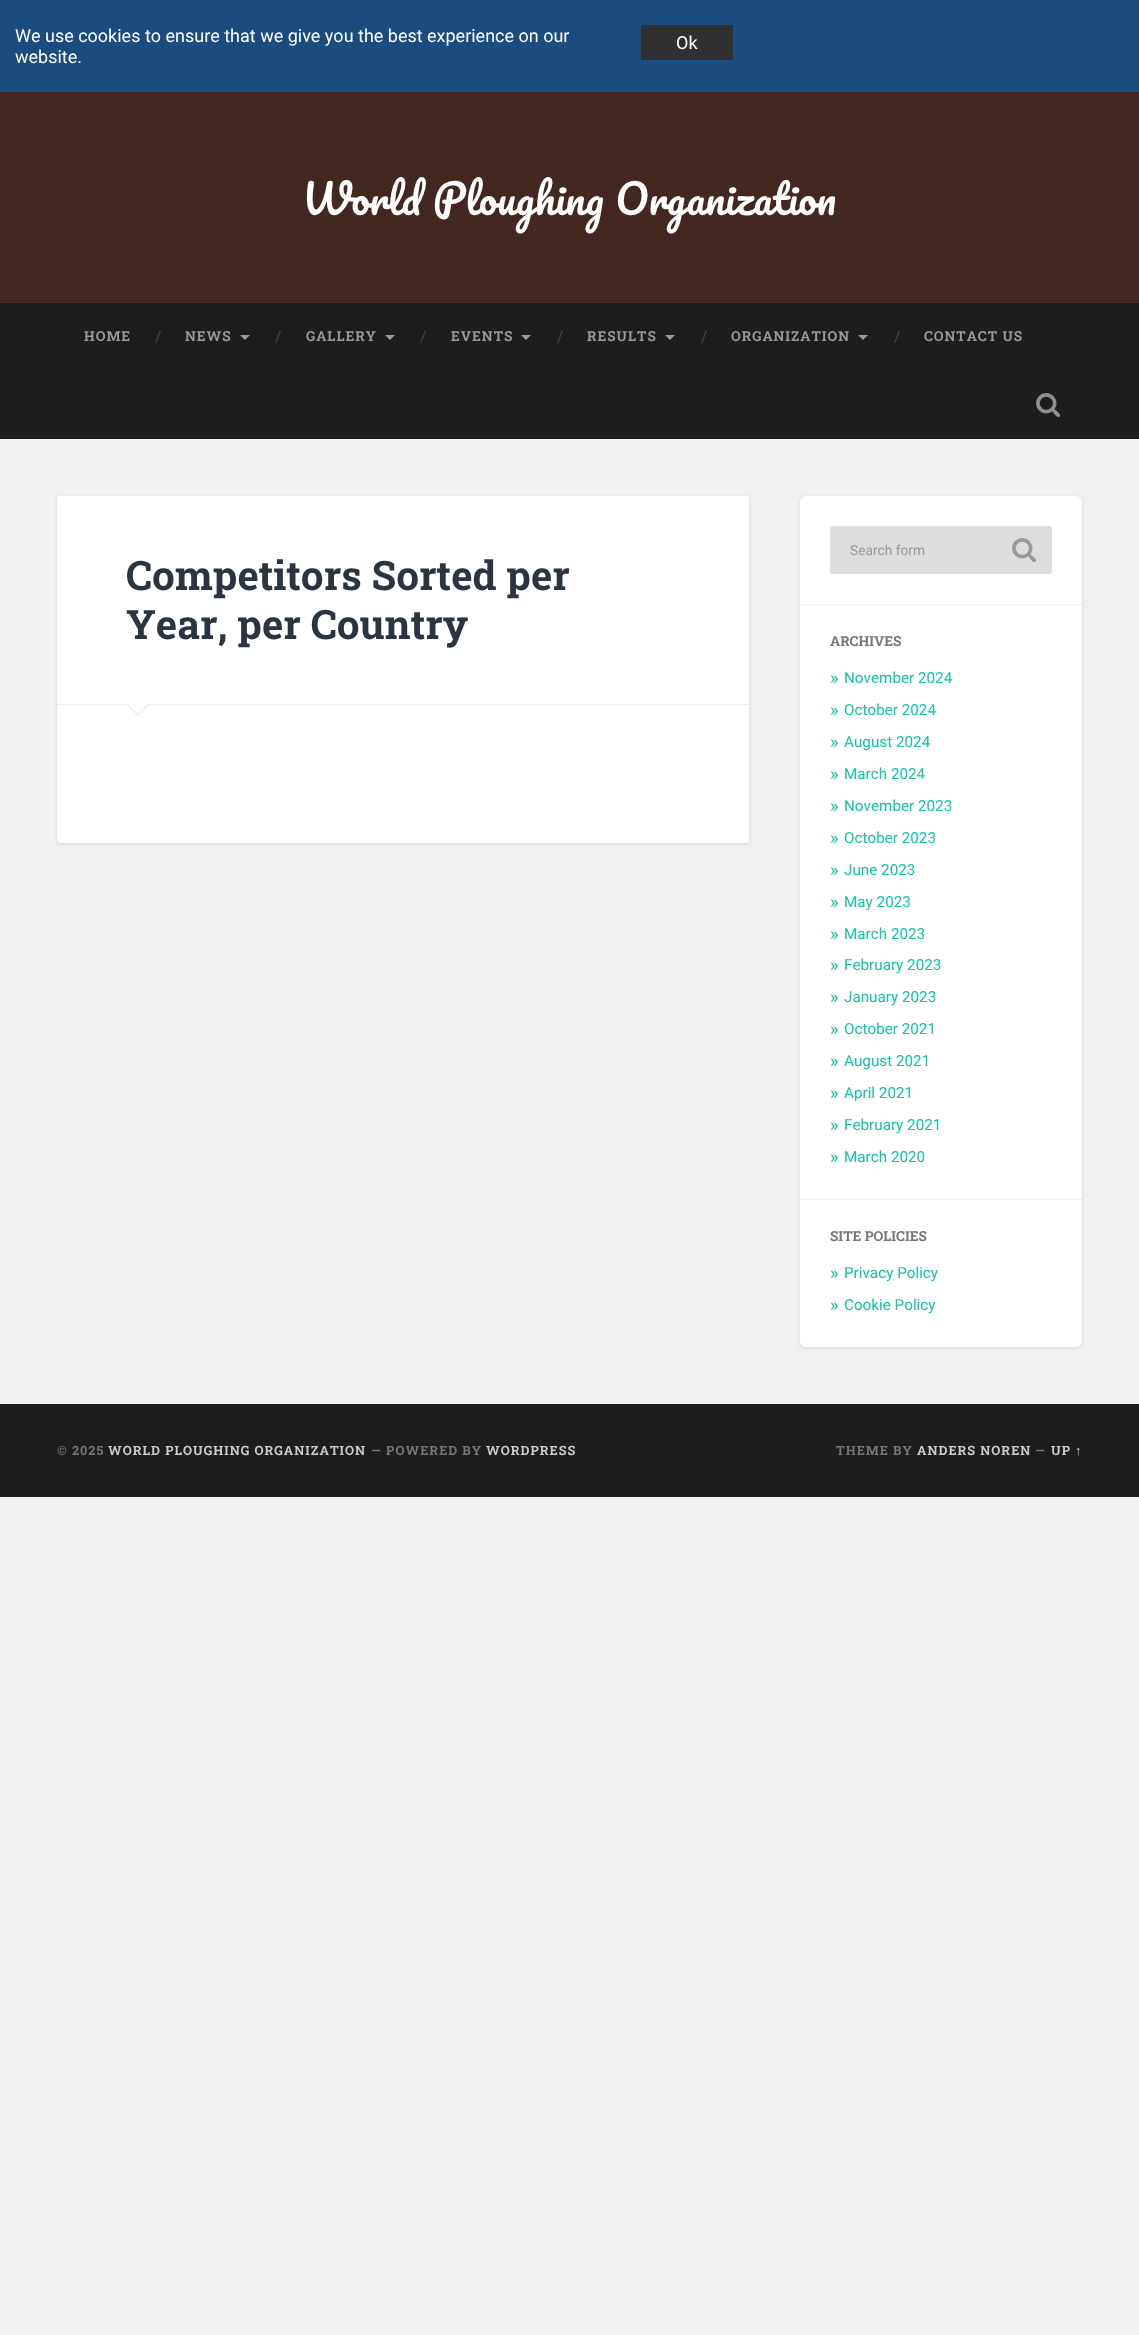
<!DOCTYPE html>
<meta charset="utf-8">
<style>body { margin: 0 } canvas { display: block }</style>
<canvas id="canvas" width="1139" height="2335"></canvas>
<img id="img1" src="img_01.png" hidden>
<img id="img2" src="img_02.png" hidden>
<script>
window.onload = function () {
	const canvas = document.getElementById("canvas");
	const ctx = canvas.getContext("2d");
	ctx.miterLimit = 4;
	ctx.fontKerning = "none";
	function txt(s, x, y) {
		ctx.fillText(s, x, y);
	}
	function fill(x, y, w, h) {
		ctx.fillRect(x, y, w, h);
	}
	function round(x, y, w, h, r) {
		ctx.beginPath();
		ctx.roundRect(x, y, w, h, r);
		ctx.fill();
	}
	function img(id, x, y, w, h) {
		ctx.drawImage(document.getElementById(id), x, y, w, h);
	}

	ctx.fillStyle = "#F1F1F1";
	fill(0, 0, 1139, 2335);
	ctx.fillStyle = "#1A4C80";
	fill(0, 0, 1139, 92);
	ctx.fillStyle = "#303030";
	fill(641, 25, 92, 35);
	ctx.fillStyle = "#432721";
	fill(0, 92, 1139, 211);
	ctx.fillStyle = "#1D1D1D";
	fill(0, 303, 1139, 136);
	ctx.fillStyle = "#999999";
	ctx.beginPath();
	ctx.moveTo(240, 335);
	ctx.lineTo(250, 335);
	ctx.lineTo(245, 340);
	ctx.closePath();
	ctx.fill();
	ctx.beginPath();
	ctx.moveTo(385, 335);
	ctx.lineTo(395, 335);
	ctx.lineTo(390, 340);
	ctx.closePath();
	ctx.fill();
	ctx.beginPath();
	ctx.moveTo(521, 335);
	ctx.lineTo(531, 335);
	ctx.lineTo(526, 340);
	ctx.closePath();
	ctx.fill();
	ctx.beginPath();
	ctx.moveTo(665, 335);
	ctx.lineTo(675, 335);
	ctx.lineTo(670, 340);
	ctx.closePath();
	ctx.fill();
	ctx.beginPath();
	ctx.moveTo(858, 335);
	ctx.lineTo(868, 335);
	ctx.lineTo(863, 340);
	ctx.closePath();
	ctx.fill();
	img("img1", 1036, 393, 24, 24);
	ctx.fillStyle = "rgba(0, 0, 0, 0.1)";
	ctx.filter = "blur(2px)";
	ctx.beginPath();
	ctx.roundRect(57, 497, 692, 347, 3);
	ctx.fill();
	ctx.filter = "none";
	ctx.fillStyle = "#FFFFFF";
	round(57, 496, 692, 347, 3);
	ctx.fillStyle = "#EEEEEE";
	fill(57, 704, 692, 1);
	ctx.beginPath();
	ctx.moveTo(126, 704);
	ctx.lineTo(150, 704);
	ctx.lineTo(138, 716);
	ctx.closePath();
	ctx.fill();
	ctx.fillStyle = "#FFFFFF";
	ctx.beginPath();
	ctx.moveTo(127, 703);
	ctx.lineTo(149, 703);
	ctx.lineTo(138, 714);
	ctx.closePath();
	ctx.fill();
	ctx.fillStyle = "rgba(0, 0, 0, 0.1)";
	ctx.filter = "blur(2px)";
	ctx.beginPath();
	ctx.roundRect(800, 497, 282, 851, 6);
	ctx.fill();
	ctx.filter = "none";
	ctx.fillStyle = "#FFFFFF";
	round(800, 496, 282, 851, 6);
	ctx.fillStyle = "#DDDDDD";
	round(830, 526, 222, 48, 3);
	img("img2", 1012, 538, 24, 24);
	ctx.fillStyle = "#EEEEEE";
	fill(800, 604, 282, 1);
	fill(800, 1199, 282, 1);
	ctx.fillStyle = "#1D1D1D";
	fill(0, 1404, 1139, 93);
	ctx.font = "18px Roboto";
	ctx.fillStyle = "#FFFFFF";
	txt("We use cookies to ensure that we give you the best experience on our", 15, 42);
	txt("website.", 15, 63);
	txt("Ok", 676, 49);
	ctx.wordSpacing = "1px";
	ctx.font = "40.5px Pacifico";
	txt("World Ploughing Organization", 302, 215);
	ctx.letterSpacing = "1px";
	ctx.wordSpacing = "0px";
	ctx.font = "bold 13.75px Roboto Slab";
	ctx.fillStyle = "#999999";
	txt("HOME", 84, 341);
	ctx.letterSpacing = "0px";
	ctx.font = "16px Roboto Slab";
	ctx.fillStyle = "#444444";
	txt("/", 155, 342);
	ctx.letterSpacing = "1px";
	ctx.font = "bold 13.75px Roboto Slab";
	ctx.fillStyle = "#999999";
	txt("NEWS", 185, 341);
	ctx.letterSpacing = "0px";
	ctx.font = "16px Roboto Slab";
	ctx.fillStyle = "#444444";
	txt("/", 275, 342);
	ctx.letterSpacing = "1px";
	ctx.font = "bold 13.75px Roboto Slab";
	ctx.fillStyle = "#999999";
	txt("GALLERY", 306, 341);
	ctx.letterSpacing = "0px";
	ctx.font = "16px Roboto Slab";
	ctx.fillStyle = "#444444";
	txt("/", 420, 342);
	ctx.letterSpacing = "1px";
	ctx.font = "bold 13.75px Roboto Slab";
	ctx.fillStyle = "#999999";
	txt("EVENTS", 451, 341);
	ctx.letterSpacing = "0px";
	ctx.font = "16px Roboto Slab";
	ctx.fillStyle = "#444444";
	txt("/", 557, 342);
	ctx.letterSpacing = "1px";
	ctx.font = "bold 13.75px Roboto Slab";
	ctx.fillStyle = "#999999";
	txt("RESULTS", 587, 341);
	ctx.letterSpacing = "0px";
	ctx.font = "16px Roboto Slab";
	ctx.fillStyle = "#444444";
	txt("/", 701, 342);
	ctx.letterSpacing = "1px";
	ctx.font = "bold 13.75px Roboto Slab";
	ctx.fillStyle = "#999999";
	txt("ORGANIZATION", 731, 341);
	ctx.letterSpacing = "0px";
	ctx.font = "16px Roboto Slab";
	ctx.fillStyle = "#444444";
	txt("/", 894, 342);
	ctx.letterSpacing = "1px";
	ctx.font = "bold 13.75px Roboto Slab";
	ctx.fillStyle = "#999999";
	txt("CONTACT US", 924, 341);
	ctx.letterSpacing = "0px";
	ctx.font = "bold 40.5px Roboto Slab";
	ctx.fillStyle = "#2B3542";
	txt("Competitors Sorted per", 126, 590);
	txt("Year, per Country", 126, 639);
	ctx.font = "13.75px Roboto";
	ctx.fillStyle = "#999999";
	txt("Search form", 850, 555);
	ctx.font = "bold 13.75px Roboto Slab";
	ctx.fillStyle = "#767676";
	txt("ARCHIVES", 830, 646);
	ctx.font = "18px Roboto";
	ctx.fillStyle = "#13C4A5";
	txt("»", 830, 684);
	ctx.font = "15.25px Roboto";
	txt("November 2024", 844, 683);
	ctx.font = "18px Roboto";
	txt("»", 830, 716);
	ctx.font = "15.25px Roboto";
	txt("October 2024", 844, 715);
	ctx.font = "18px Roboto";
	txt("»", 830, 748);
	ctx.font = "15.25px Roboto";
	txt("August 2024", 844, 747);
	ctx.font = "18px Roboto";
	txt("»", 830, 780);
	ctx.font = "15.25px Roboto";
	txt("March 2024", 844, 779);
	ctx.font = "18px Roboto";
	txt("»", 830, 812);
	ctx.font = "15.25px Roboto";
	txt("November 2023", 844, 811);
	ctx.font = "18px Roboto";
	txt("»", 830, 844);
	ctx.font = "15.25px Roboto";
	txt("October 2023", 844, 843);
	ctx.font = "18px Roboto";
	txt("»", 830, 876);
	ctx.font = "15.25px Roboto";
	txt("June 2023", 844, 875);
	ctx.font = "18px Roboto";
	txt("»", 830, 908);
	ctx.font = "15.25px Roboto";
	txt("May 2023", 844, 907);
	ctx.font = "18px Roboto";
	txt("»", 830, 940);
	ctx.font = "15.25px Roboto";
	txt("March 2023", 844, 939);
	ctx.font = "18px Roboto";
	txt("»", 830, 971);
	ctx.font = "15.25px Roboto";
	txt("February 2023", 844, 970);
	ctx.font = "18px Roboto";
	txt("»", 830, 1003);
	ctx.font = "15.25px Roboto";
	txt("January 2023", 844, 1002);
	ctx.font = "18px Roboto";
	txt("»", 830, 1035);
	ctx.font = "15.25px Roboto";
	txt("October 2021", 844, 1034);
	ctx.font = "18px Roboto";
	txt("»", 830, 1067);
	ctx.font = "15.25px Roboto";
	txt("August 2021", 844, 1066);
	ctx.font = "18px Roboto";
	txt("»", 830, 1099);
	ctx.font = "15.25px Roboto";
	txt("April 2021", 844, 1098);
	ctx.font = "18px Roboto";
	txt("»", 830, 1131);
	ctx.font = "15.25px Roboto";
	txt("February 2021", 844, 1130);
	ctx.font = "18px Roboto";
	txt("»", 830, 1163);
	ctx.font = "15.25px Roboto";
	txt("March 2020", 844, 1162);
	ctx.font = "bold 13.75px Roboto Slab";
	ctx.fillStyle = "#767676";
	txt("SITE POLICIES", 830, 1241);
	ctx.font = "18px Roboto";
	ctx.fillStyle = "#13C4A5";
	txt("»", 830, 1279);
	ctx.font = "15.25px Roboto";
	txt("Privacy Policy", 844, 1278);
	ctx.font = "18px Roboto";
	txt("»", 830, 1311);
	ctx.font = "15.25px Roboto";
	txt("Cookie Policy", 844, 1310);
	ctx.letterSpacing = "1px";
	ctx.font = "bold 12.8px Roboto Slab";
	ctx.fillStyle = "#767676";
	txt("© 2025", 57, 1455);
	ctx.fillStyle = "#CCCCCC";
	txt("WORLD PLOUGHING ORGANIZATION", 108, 1455);
	ctx.fillStyle = "#767676";
	txt("— POWERED BY", 371, 1455);
	ctx.fillStyle = "#CCCCCC";
	txt("WORDPRESS", 486, 1455);
	ctx.fillStyle = "#767676";
	txt("THEME BY", 836, 1455);
	ctx.fillStyle = "#CCCCCC";
	txt("ANDERS NOREN", 917, 1455);
	ctx.fillStyle = "#767676";
	txt("—", 1035, 1455);
	ctx.fillStyle = "#CCCCCC";
	txt("UP", 1051, 1455);
	ctx.font = "bold 12.8px Liberation Sans";
	txt("↑", 1075, 1455);
};
</script>
